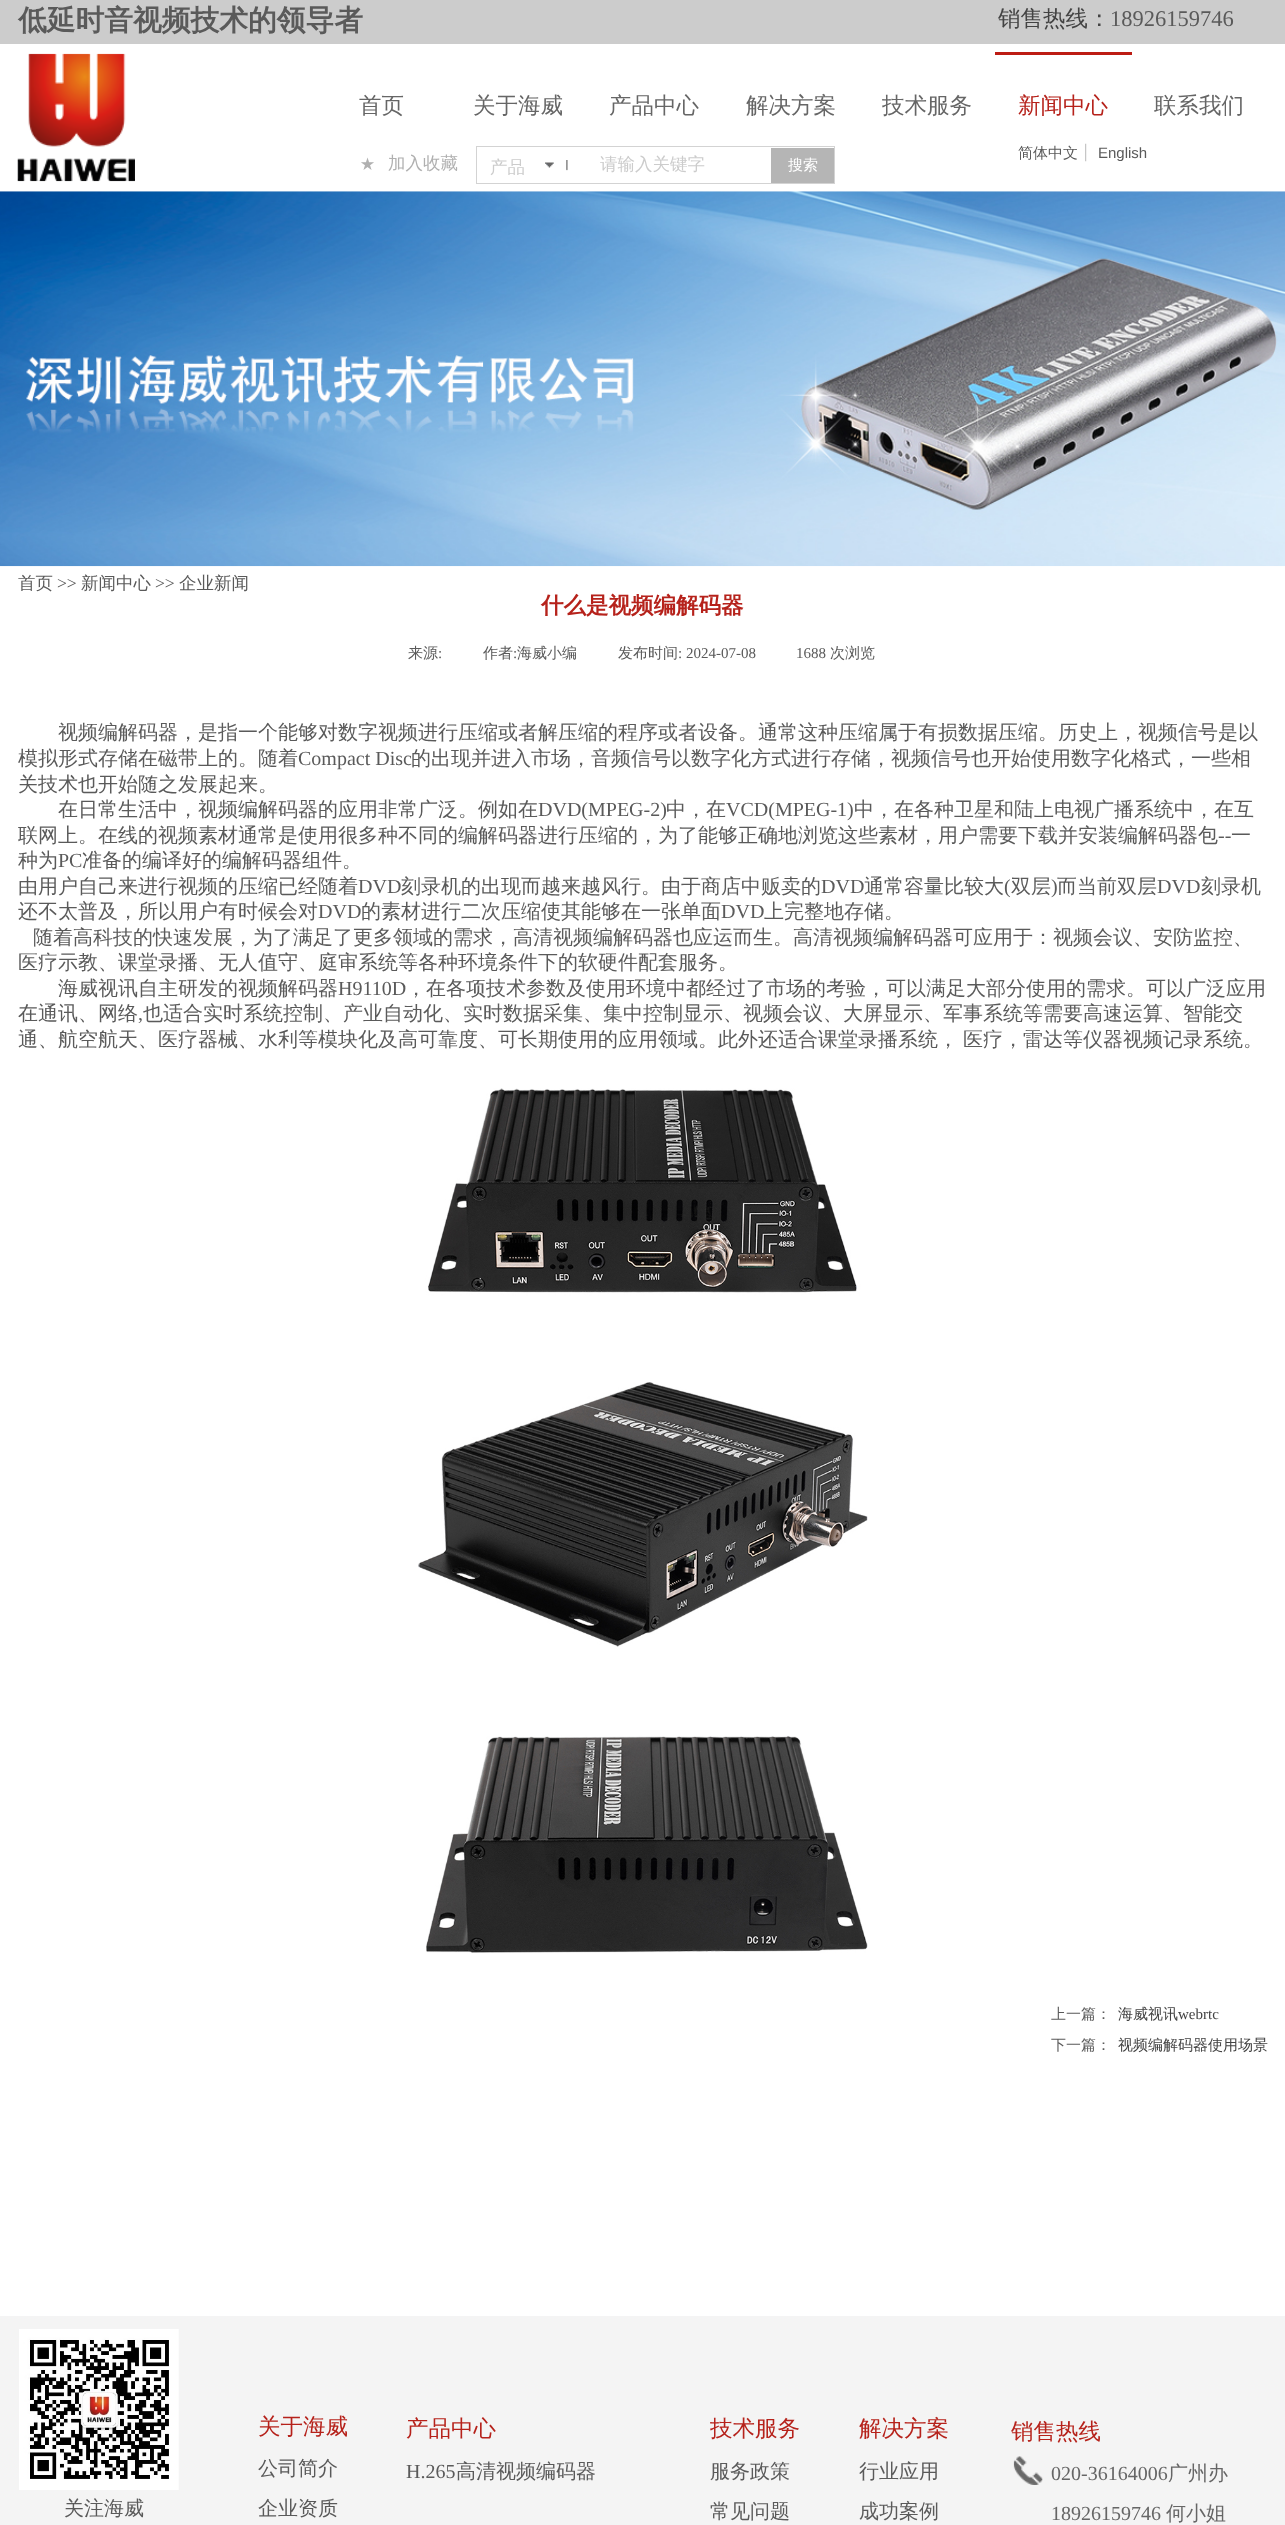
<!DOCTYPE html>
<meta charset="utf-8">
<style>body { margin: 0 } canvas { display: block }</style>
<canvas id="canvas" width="1285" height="2525"></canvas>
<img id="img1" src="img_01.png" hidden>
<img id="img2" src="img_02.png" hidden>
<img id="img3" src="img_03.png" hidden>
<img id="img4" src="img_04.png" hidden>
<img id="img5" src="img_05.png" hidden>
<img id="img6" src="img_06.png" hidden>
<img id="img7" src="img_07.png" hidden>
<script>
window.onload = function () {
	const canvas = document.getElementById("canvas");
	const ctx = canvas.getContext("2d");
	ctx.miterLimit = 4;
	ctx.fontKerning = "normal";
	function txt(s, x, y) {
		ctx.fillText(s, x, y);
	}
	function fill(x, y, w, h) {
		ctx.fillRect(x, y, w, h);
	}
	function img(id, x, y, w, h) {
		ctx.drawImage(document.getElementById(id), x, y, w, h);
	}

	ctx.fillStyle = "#FFFFFF";
	fill(0, 0, 1285, 2525);
	ctx.fillStyle = "#CCCCCC";
	fill(0, 0, 1285, 44);
	img("img1", 17, 53, 118, 129);
	ctx.fillStyle = "#BD1C14";
	fill(995, 52, 137, 3);
	ctx.strokeStyle = "#D3D3D3";
	ctx.strokeRect(476.5, 146.5, 358, 37);
	img("img2", 545, 160, 23, 11);
	ctx.fillStyle = "#B5B5B5";
	fill(771, 148, 63, 35);
	img("img3", 1085, 143, 2, 19);
	img("img4", 0, 191, 1285, 376);
	img("img5", 418, 1088, 450, 865);
	ctx.fillStyle = "#F4F4F4";
	fill(0, 2316, 1285, 209);
	img("img6", 19, 2329, 160, 161);
	img("img7", 1013, 2456, 30, 29);
	ctx.font = "bold 28.75px WenQuanYi Zen Hei";
	ctx.fillStyle = "#5A5A5A";
	txt("低延时音视频技术的领导者", 18, 30);
	ctx.font = "500 22.5px WenQuanYi Zen Hei";
	ctx.fillStyle = "#434343";
	txt("销售热线：", 998, 26);
	ctx.font = "22.5px Liberation Serif";
	ctx.fillStyle = "#5A5A5A";
	txt("18926159746", 1110, 26);
	ctx.font = "500 22.5px WenQuanYi Zen Hei";
	ctx.fillStyle = "#666666";
	txt("首页", 359, 113);
	txt("关于海威", 473, 113);
	txt("产品中心", 609, 113);
	txt("解决方案", 746, 113);
	txt("技术服务", 882, 113);
	ctx.fillStyle = "#B6221B";
	txt("新闻中心", 1018, 113);
	ctx.fillStyle = "#666666";
	txt("联系我们", 1154, 113);
	ctx.font = "500 15px WenQuanYi Zen Hei";
	ctx.fillStyle = "#B0B0B0";
	txt("★", 360, 169);
	ctx.font = "500 17.5px WenQuanYi Zen Hei";
	txt("加入收藏", 388, 169);
	ctx.fillStyle = "#CCCCCC";
	txt("产品", 490, 173);
	txt("请输入关键字", 600, 170);
	ctx.font = "500 15px WenQuanYi Zen Hei";
	ctx.fillStyle = "#FFFFFF";
	txt("搜索", 788, 170);
	ctx.fillStyle = "#5A5A5A";
	txt("简体中文", 1018, 158);
	ctx.font = "15px Liberation Sans";
	txt("English", 1098, 158);
	ctx.font = "500 17.5px WenQuanYi Zen Hei";
	txt("首页", 18, 589);
	ctx.font = "17.5px Liberation Serif";
	txt(">>", 57, 589);
	ctx.font = "500 17.5px WenQuanYi Zen Hei";
	txt("新闻中心", 81, 589);
	ctx.font = "17.5px Liberation Serif";
	txt(">>", 155, 589);
	ctx.font = "500 17.5px WenQuanYi Zen Hei";
	txt("企业新闻", 179, 589);
	ctx.font = "bold 22.5px WenQuanYi Zen Hei";
	ctx.fillStyle = "#B6221B";
	txt("什么是视频编解码器", 541, 613);
	ctx.font = "500 15px WenQuanYi Zen Hei";
	ctx.fillStyle = "#5A5A5A";
	txt("来源", 408, 658);
	ctx.font = "15px Liberation Serif";
	txt(":", 438, 658);
	ctx.font = "500 15px WenQuanYi Zen Hei";
	txt("作者", 483, 658);
	ctx.font = "15px Liberation Serif";
	txt(":", 513, 658);
	ctx.font = "500 15px WenQuanYi Zen Hei";
	txt("海威小编", 517, 658);
	txt("发布时间", 618, 658);
	ctx.font = "15px Liberation Serif";
	txt(": 2024-07-08", 678, 658);
	txt("1688", 796, 658);
	ctx.font = "500 15px WenQuanYi Zen Hei";
	txt("次浏览", 830, 658);
	ctx.font = "500 20px WenQuanYi Zen Hei";
	txt("视频编解码器，是指一个能够对数字视频进行压缩或者解压缩的程序或者设备。通常这种压缩属于有损数据压缩。历史上，视频信号是以", 58, 739);
	txt("模拟形式存储在磁带上的。随着", 18, 765);
	ctx.font = "20px Liberation Serif";
	txt("Compact Disc", 298, 765);
	ctx.font = "500 20px WenQuanYi Zen Hei";
	txt("的出现并进入市场，音频信号以数字化方式进行存储，视频信号也开始使用数字化格式，一些相", 411, 765);
	txt("关技术也开始随之发展起来。", 18, 791);
	txt("在日常生活中，视频编解码器的应用非常广泛。例如在", 58, 816);
	ctx.font = "20px Liberation Serif";
	txt("DVD(MPEG-2)", 538, 816);
	ctx.font = "500 20px WenQuanYi Zen Hei";
	txt("中，在", 666, 816);
	ctx.font = "20px Liberation Serif";
	txt("VCD(MPEG-1)", 726, 816);
	ctx.font = "500 20px WenQuanYi Zen Hei";
	txt("中，在各种卫星和陆上电视广播系统中，在互", 854, 816);
	ctx.save();
	ctx.beginPath();
	ctx.rect(18, 583, 1250, 1593);
	ctx.clip();
	txt("联网上。在线的视频素材通常是使用很多种不同的编解码器进行压缩的，为了能够正确地浏览这些素材，用户需要下载并安装编解码器包", 18, 842);
	ctx.restore();
	txt("一", 1231, 842);
	ctx.font = "20px Liberation Serif";
	txt("--", 1218, 842);
	ctx.font = "500 20px WenQuanYi Zen Hei";
	txt("种为", 18, 867);
	ctx.font = "20px Liberation Serif";
	txt("PC", 58, 867);
	ctx.font = "500 20px WenQuanYi Zen Hei";
	txt("准备的编译好的编解码器组件。", 82, 867);
	txt("由用户自己来进行视频的压缩已经随着", 18, 893);
	ctx.font = "20px Liberation Serif";
	txt("DVD", 358, 893);
	ctx.font = "500 20px WenQuanYi Zen Hei";
	txt("刻录机的出现而越来越风行。由于商店中贩卖的", 401, 893);
	ctx.font = "20px Liberation Serif";
	txt("DVD", 821, 893);
	ctx.font = "500 20px WenQuanYi Zen Hei";
	txt("通常容量比较大", 864, 893);
	ctx.font = "20px Liberation Serif";
	txt("(", 1004, 893);
	ctx.font = "500 20px WenQuanYi Zen Hei";
	txt("双层", 1011, 893);
	ctx.font = "20px Liberation Serif";
	txt(")", 1051, 893);
	ctx.font = "500 20px WenQuanYi Zen Hei";
	txt("而当前双层", 1057, 893);
	ctx.font = "20px Liberation Serif";
	txt("DVD", 1157, 893);
	ctx.font = "500 20px WenQuanYi Zen Hei";
	txt("刻录机", 1201, 893);
	txt("还不太普及，所以用户有时候会对", 18, 918);
	ctx.font = "20px Liberation Serif";
	txt("DVD", 318, 918);
	ctx.font = "500 20px WenQuanYi Zen Hei";
	txt("的素材进行二次压缩使其能够在一张单面", 361, 918);
	ctx.font = "20px Liberation Serif";
	txt("DVD", 721, 918);
	ctx.font = "500 20px WenQuanYi Zen Hei";
	txt("上完整地存储。", 764, 918);
	txt("随着高科技的快速发展，为了满足了更多领域的需求，高清视频编解码器也应运而生。高清视频编解码器可应用于：视频会议、安防监控、", 33, 944);
	txt("医疗示教、课堂录播、无人值守、庭审系统等各种环境条件下的软硬件配套服务。", 18, 969);
	txt("海威视讯自主研发的视频解码器", 58, 995);
	ctx.font = "20px Liberation Serif";
	txt("H9110D", 338, 995);
	ctx.font = "500 20px WenQuanYi Zen Hei";
	txt("，在各项技术参数及使用环境中都经过了市场的考验，可以满足大部分使用的需求。可以广泛应用", 406, 995);
	txt("在通讯、网络", 18, 1020);
	ctx.font = "20px Liberation Serif";
	txt(",", 138, 1020);
	ctx.font = "500 20px WenQuanYi Zen Hei";
	txt("也适合实时系统控制、产业自动化、实时数据采集、集中控制显示、视频会议、大屏显示、军事系统等需要高速运算、智能交", 143, 1020);
	ctx.wordSpacing = "-1px";
	txt("通、航空航天、医疗器械、水利等模块化及高可靠度、可长期使用的应用领域。此外还适合课堂录播系统， 医疗，雷达等仪器视频记录系统。", 18, 1046);
	ctx.wordSpacing = "0px";
	ctx.font = "500 15px WenQuanYi Zen Hei";
	txt("上一篇：", 1051, 2019);
	ctx.fillStyle = "#434343";
	txt("海威视讯", 1118, 2019);
	ctx.font = "15px Liberation Serif";
	txt("webrtc", 1178, 2019);
	ctx.font = "500 15px WenQuanYi Zen Hei";
	ctx.fillStyle = "#5A5A5A";
	txt("下一篇：", 1051, 2050);
	ctx.fillStyle = "#434343";
	txt("视频编解码器使用场景", 1118, 2050);
	ctx.font = "500 22.5px WenQuanYi Zen Hei";
	ctx.fillStyle = "#B6221B";
	txt("关于海威", 258, 2434);
	ctx.font = "500 20px WenQuanYi Zen Hei";
	ctx.fillStyle = "#5A5A5A";
	txt("公司简介", 258, 2475);
	txt("企业资质", 258, 2515);
	ctx.font = "500 22.5px WenQuanYi Zen Hei";
	ctx.fillStyle = "#B6221B";
	txt("产品中心", 406, 2436);
	ctx.font = "20px Liberation Serif";
	ctx.fillStyle = "#5A5A5A";
	txt("H.265", 406, 2478);
	ctx.font = "500 20px WenQuanYi Zen Hei";
	txt("高清视频编码器", 456, 2478);
	ctx.font = "500 22.5px WenQuanYi Zen Hei";
	ctx.fillStyle = "#B6221B";
	txt("技术服务", 710, 2436);
	ctx.font = "500 20px WenQuanYi Zen Hei";
	ctx.fillStyle = "#5A5A5A";
	txt("服务政策", 710, 2478);
	txt("常见问题", 710, 2518);
	ctx.font = "500 22.5px WenQuanYi Zen Hei";
	ctx.fillStyle = "#B6221B";
	txt("解决方案", 859, 2436);
	ctx.font = "500 20px WenQuanYi Zen Hei";
	ctx.fillStyle = "#5A5A5A";
	txt("行业应用", 859, 2478);
	txt("成功案例", 859, 2518);
	ctx.font = "500 22.5px WenQuanYi Zen Hei";
	ctx.fillStyle = "#B6221B";
	txt("销售热线", 1011, 2439);
	ctx.font = "20px Liberation Serif";
	ctx.fillStyle = "#666666";
	txt("020-36164006", 1051, 2480);
	ctx.font = "500 20px WenQuanYi Zen Hei";
	txt("广州办", 1168, 2480);
	ctx.font = "20px Liberation Serif";
	txt("18926159746", 1051, 2520);
	ctx.font = "500 20px WenQuanYi Zen Hei";
	txt("何小姐", 1166, 2520);
	ctx.fillStyle = "#5A5A5A";
	txt("关注海威", 64, 2515);
};
</script>
